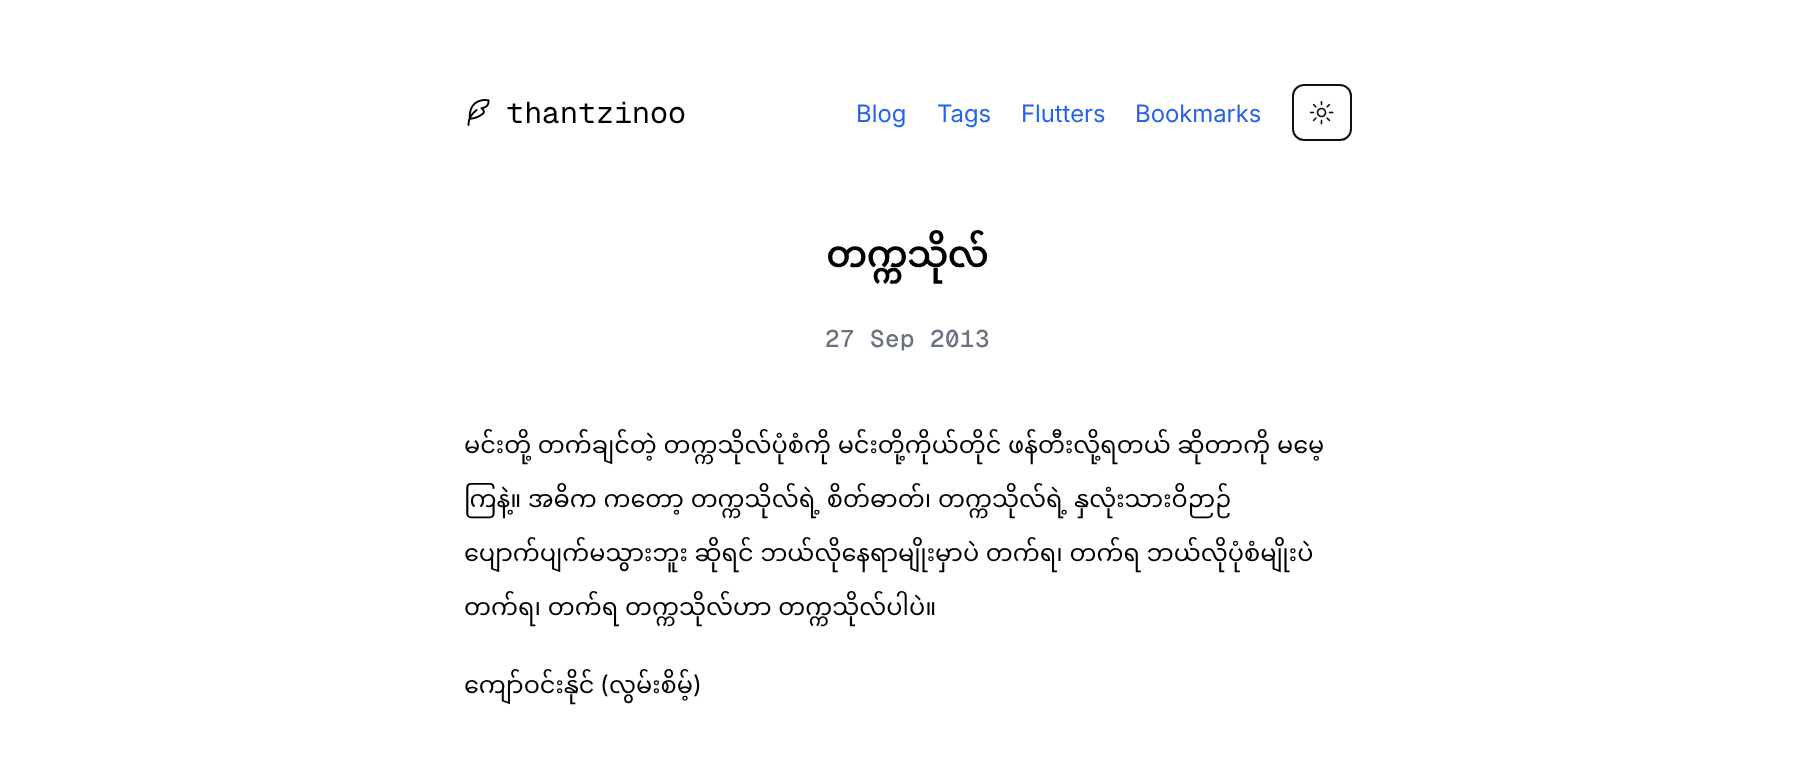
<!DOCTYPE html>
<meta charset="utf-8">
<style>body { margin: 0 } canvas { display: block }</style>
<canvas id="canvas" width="1814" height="769"></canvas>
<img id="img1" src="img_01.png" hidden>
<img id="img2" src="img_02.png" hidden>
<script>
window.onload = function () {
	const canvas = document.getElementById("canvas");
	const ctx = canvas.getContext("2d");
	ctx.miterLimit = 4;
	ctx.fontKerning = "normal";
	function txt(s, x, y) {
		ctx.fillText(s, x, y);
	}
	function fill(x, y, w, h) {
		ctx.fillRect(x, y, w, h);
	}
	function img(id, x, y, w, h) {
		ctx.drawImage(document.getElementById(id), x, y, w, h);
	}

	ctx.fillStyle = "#FFFFFF";
	fill(0, 0, 1814, 769);
	img("img1", 467, 99, 23, 27);
	ctx.beginPath();
	ctx.roundRect(1293, 85, 58, 55, 11);
	ctx.strokeStyle = "#111111";
	ctx.lineWidth = 2;
	ctx.stroke();
	img("img2", 1310, 101, 24, 24);
	ctx.font = "30px Geist Mono";
	ctx.fillStyle = "#000000";
	txt("thantzinoo", 506, 123);
	ctx.font = "24px Inter";
	ctx.fillStyle = "#2563EB";
	txt("Blog", 856, 122);
	txt("Tags", 937, 122);
	txt("Flutters", 1021, 122);
	txt("Bookmarks", 1135, 122);
	ctx.font = "bold 36px Noto Sans Myanmar";
	ctx.fillStyle = "#000000";
	txt("တက္ကသိုလ်", 826, 267);
	ctx.letterSpacing = "0.6px";
	ctx.font = "500 24px Geist Mono";
	ctx.fillStyle = "#6B7280";
	txt("27 Sep 2013", 825, 347);
	ctx.letterSpacing = "0px";
	ctx.wordSpacing = "0.5px";
	ctx.font = "24px Noto Sans Myanmar";
	ctx.fillStyle = "#000000";
	txt("မင်းတို့ တက်ချင်တဲ့ တက္ကသိုလ်ပုံစံကို မင်းတို့ကိုယ်တိုင် ဖန်တီးလို့ရတယ် ဆိုတာကို မမေ့", 464, 453);
	txt("ကြနဲ့။ အဓိက ကတော့ တက္ကသိုလ်ရဲ့ စိတ်ဓာတ်၊ တက္ကသိုလ်ရဲ့ နှလုံးသားဝိဉာဉ်", 464, 507);
	txt("ပျောက်ပျက်မသွားဘူး ဆိုရင် ဘယ်လိုနေရာမျိုးမှာပဲ တက်ရ၊ တက်ရ ဘယ်လိုပုံစံမျိုးပဲ", 464, 561);
	txt("တက်ရ၊ တက်ရ တက္ကသိုလ်ဟာ တက္ကသိုလ်ပါပဲ။", 464, 615);
	ctx.wordSpacing = "0px";
	txt("ကျော်ဝင်းနိုင်", 464, 693);
	ctx.font = "24px 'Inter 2'";
	txt("(", 600, 693);
	ctx.font = "24px Noto Sans Myanmar";
	txt("လွမ်းစိမ့်", 609, 693);
	ctx.font = "24px 'Inter 2'";
	txt(")", 693, 693);
};
</script>
